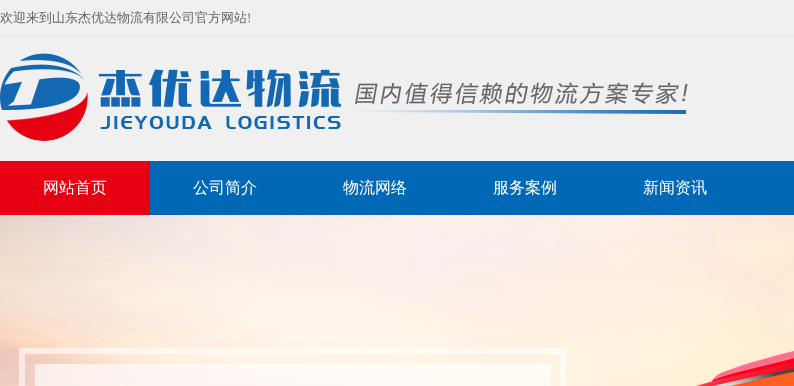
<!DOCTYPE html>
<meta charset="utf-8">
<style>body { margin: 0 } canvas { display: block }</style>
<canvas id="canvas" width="794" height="386"></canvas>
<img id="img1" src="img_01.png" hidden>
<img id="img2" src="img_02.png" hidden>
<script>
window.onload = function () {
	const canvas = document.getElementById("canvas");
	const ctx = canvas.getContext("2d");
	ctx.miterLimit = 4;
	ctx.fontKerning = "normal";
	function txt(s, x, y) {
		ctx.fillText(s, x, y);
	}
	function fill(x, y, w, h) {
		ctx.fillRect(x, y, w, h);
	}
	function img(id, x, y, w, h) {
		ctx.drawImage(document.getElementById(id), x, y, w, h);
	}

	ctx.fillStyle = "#F0F0F0";
	fill(0, 0, 794, 386);
	ctx.fillStyle = "#E5E5E5";
	fill(0, 36, 794, 1);
	img("img1", 0, 53, 688, 88);
	ctx.fillStyle = "#0068B6";
	fill(150, 161, 644, 54);
	ctx.fillStyle = "#E60012";
	fill(0, 161, 150, 54);
	img("img2", 0, 215, 794, 171);
	ctx.font = "500 13px WenQuanYi Zen Hei";
	ctx.fillStyle = "#666666";
	txt("欢迎来到山东杰优达物流有限公司官方网站", 0, 22);
	ctx.font = "13px Liberation Serif";
	txt("!", 247, 22);
	ctx.font = "500 16px WenQuanYi Zen Hei";
	ctx.fillStyle = "#FFFFFF";
	txt("网站首页", 43, 193);
	txt("公司简介", 193, 193);
	txt("物流网络", 343, 193);
	txt("服务案例", 493, 193);
	txt("新闻资讯", 643, 193);
};
</script>
